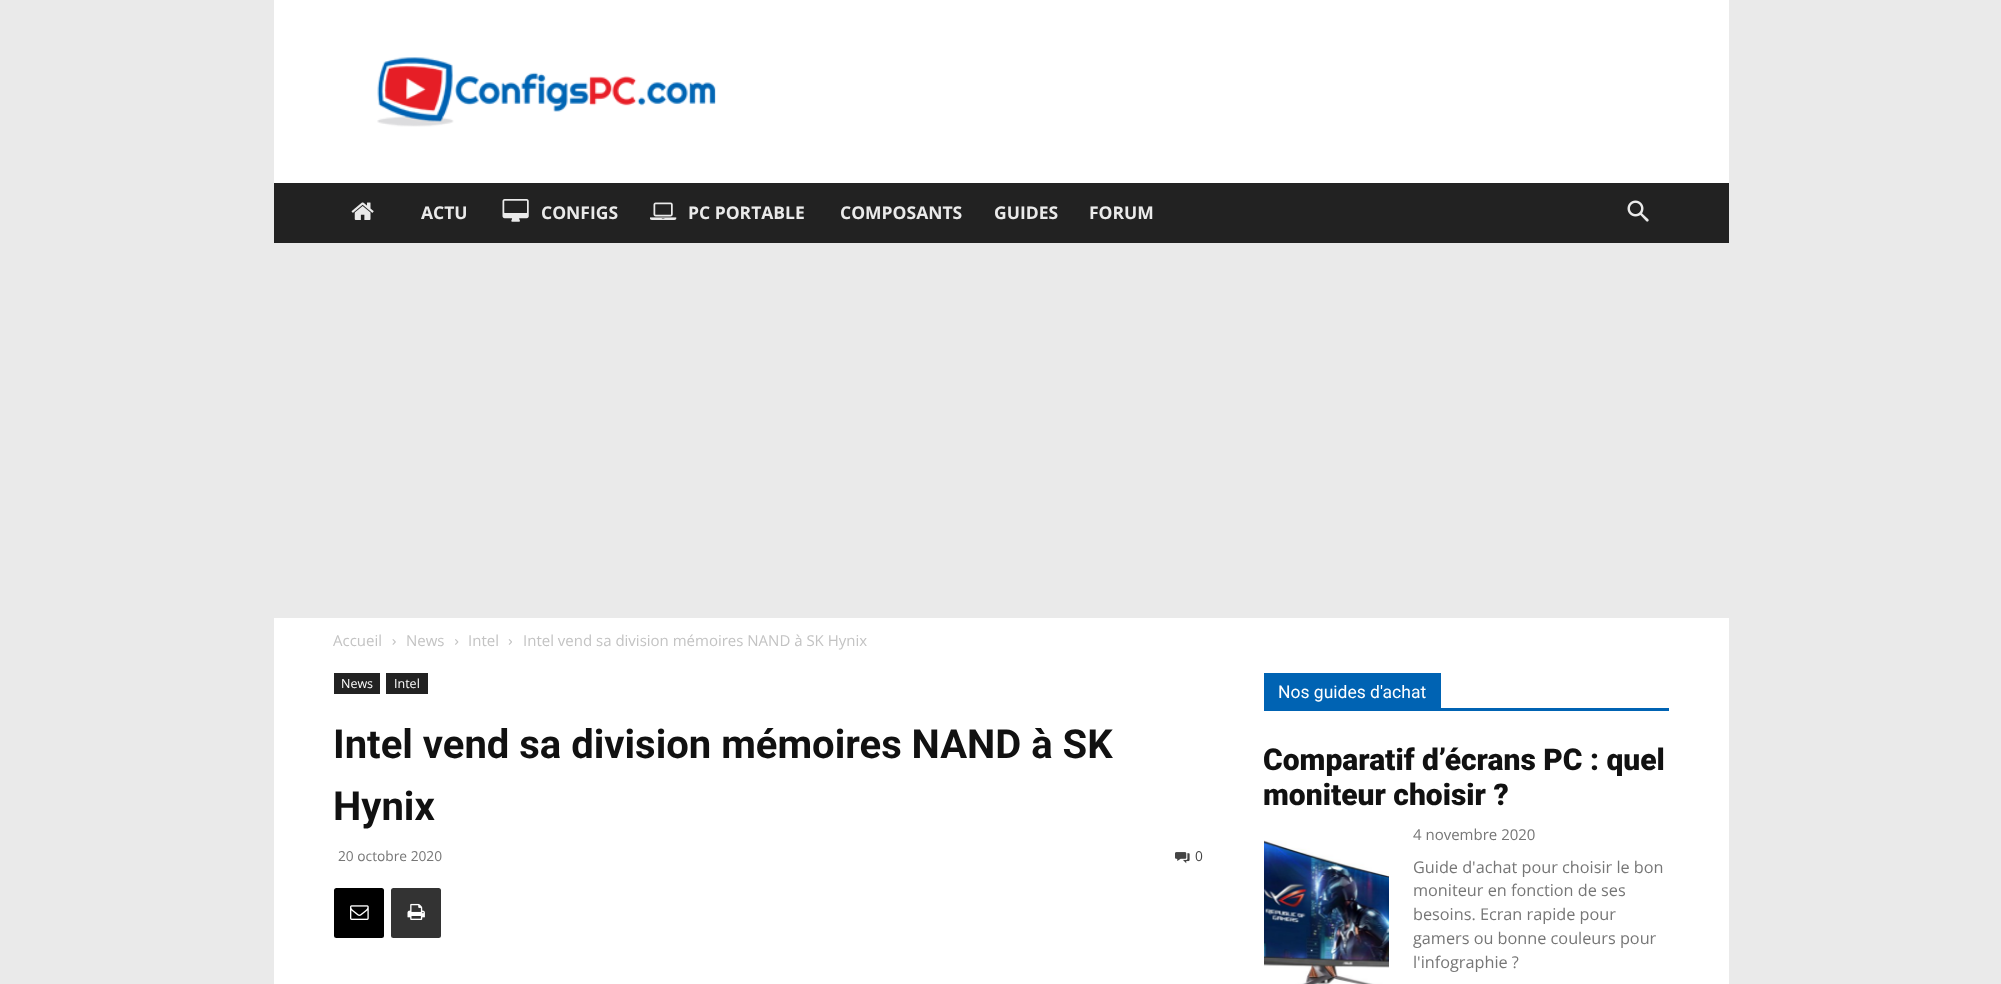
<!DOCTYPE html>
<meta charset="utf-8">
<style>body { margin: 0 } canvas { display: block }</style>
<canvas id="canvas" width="2001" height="984"></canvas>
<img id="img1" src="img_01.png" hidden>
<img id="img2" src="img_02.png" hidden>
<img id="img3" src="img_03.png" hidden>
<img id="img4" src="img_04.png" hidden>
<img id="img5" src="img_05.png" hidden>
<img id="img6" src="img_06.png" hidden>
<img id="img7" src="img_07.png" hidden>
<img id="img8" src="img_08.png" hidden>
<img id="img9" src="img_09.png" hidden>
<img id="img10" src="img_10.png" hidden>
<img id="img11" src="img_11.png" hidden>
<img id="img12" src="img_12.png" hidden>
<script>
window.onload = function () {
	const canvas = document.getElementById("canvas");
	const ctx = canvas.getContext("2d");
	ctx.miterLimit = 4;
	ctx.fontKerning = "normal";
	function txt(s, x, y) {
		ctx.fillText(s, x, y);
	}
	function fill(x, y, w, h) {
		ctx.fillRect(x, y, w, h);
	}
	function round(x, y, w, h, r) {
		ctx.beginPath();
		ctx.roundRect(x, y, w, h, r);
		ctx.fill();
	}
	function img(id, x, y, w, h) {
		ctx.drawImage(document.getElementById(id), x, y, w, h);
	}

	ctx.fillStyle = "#EAEAEA";
	fill(0, 0, 2001, 984);
	ctx.fillStyle = "#FFFFFF";
	fill(274, 0, 1455, 183);
	img("img1", 377, 57, 339, 70);
	ctx.fillStyle = "#222222";
	fill(274, 183, 1455, 60);
	img("img2", 351, 202, 23, 18);
	img("img3", 502, 199, 27, 23);
	img("img4", 650, 202, 27, 18);
	img("img5", 1627, 200, 22, 22);
	ctx.fillStyle = "#FFFFFF";
	fill(274, 618, 1455, 366);
	img("img6", 392, 639, 4, 6);
	img("img7", 455, 639, 4, 6);
	img("img8", 508, 639, 4, 6);
	ctx.fillStyle = "#222222";
	fill(334, 673, 46, 21);
	fill(386, 673, 42, 21);
	img("img9", 1175, 852, 15, 12);
	ctx.fillStyle = "#000000";
	round(334, 888, 50, 50, 2.5);
	img("img10", 350, 905, 19, 15);
	ctx.fillStyle = "#333333";
	round(391, 888, 50, 50, 2.5);
	img("img11", 407, 903, 18, 17);
	ctx.fillStyle = "#0063B3";
	fill(1264, 708, 405, 3);
	fill(1264, 673, 177, 35);
	img("img12", 1264, 840, 125, 144);
	ctx.font = "bold 17.5px Open Sans";
	ctx.fillStyle = "#EAEAEA";
	txt("ACTU", 421, 219);
	txt("CONFIGS", 541, 219);
	txt("PC PORTABLE", 688, 219);
	txt("COMPOSANTS", 840, 219);
	txt("GUIDES", 994, 219);
	txt("FORUM", 1089, 219);
	ctx.font = "15px Open Sans";
	ctx.fillStyle = "#C3C3C3";
	txt("Accueil", 333, 646);
	txt("News", 406, 646);
	txt("Intel", 468, 646);
	txt("Intel vend sa division mémoires NAND à SK Hynix", 523, 646);
	ctx.font = "12.5px Open Sans";
	ctx.fillStyle = "#FFFFFF";
	txt("News", 341, 688);
	txt("Intel", 394, 688);
	ctx.font = "bold 40px Roboto";
	ctx.fillStyle = "#111111";
	txt("Intel vend sa division mémoires NAND à SK", 333, 758);
	txt("Hynix", 333, 820);
	ctx.font = "13.75px Open Sans";
	ctx.fillStyle = "#767676";
	txt("20 octobre 2020", 338, 861);
	ctx.fillStyle = "#444444";
	txt("0", 1195, 861);
	ctx.font = "17.5px Roboto";
	ctx.fillStyle = "#FFFFFF";
	txt("Nos guides d'achat", 1278, 698);
	ctx.font = "900 30px Roboto";
	ctx.fillStyle = "#111111";
	txt("Comparatif d’écrans PC : quel", 1263, 770);
	txt("moniteur choisir ?", 1263, 805);
	ctx.font = "15px Open Sans";
	ctx.fillStyle = "#767676";
	txt("4 novembre 2020", 1413, 840);
	ctx.font = "16.25px Open Sans";
	txt("Guide d'achat pour choisir le bon", 1413, 873);
	txt("moniteur en fonction de ses", 1413, 896);
	txt("besoins. Ecran rapide pour", 1413, 920);
	txt("gamers ou bonne couleurs pour", 1413, 944);
	txt("l'infographie ?", 1413, 968);
};
</script>
